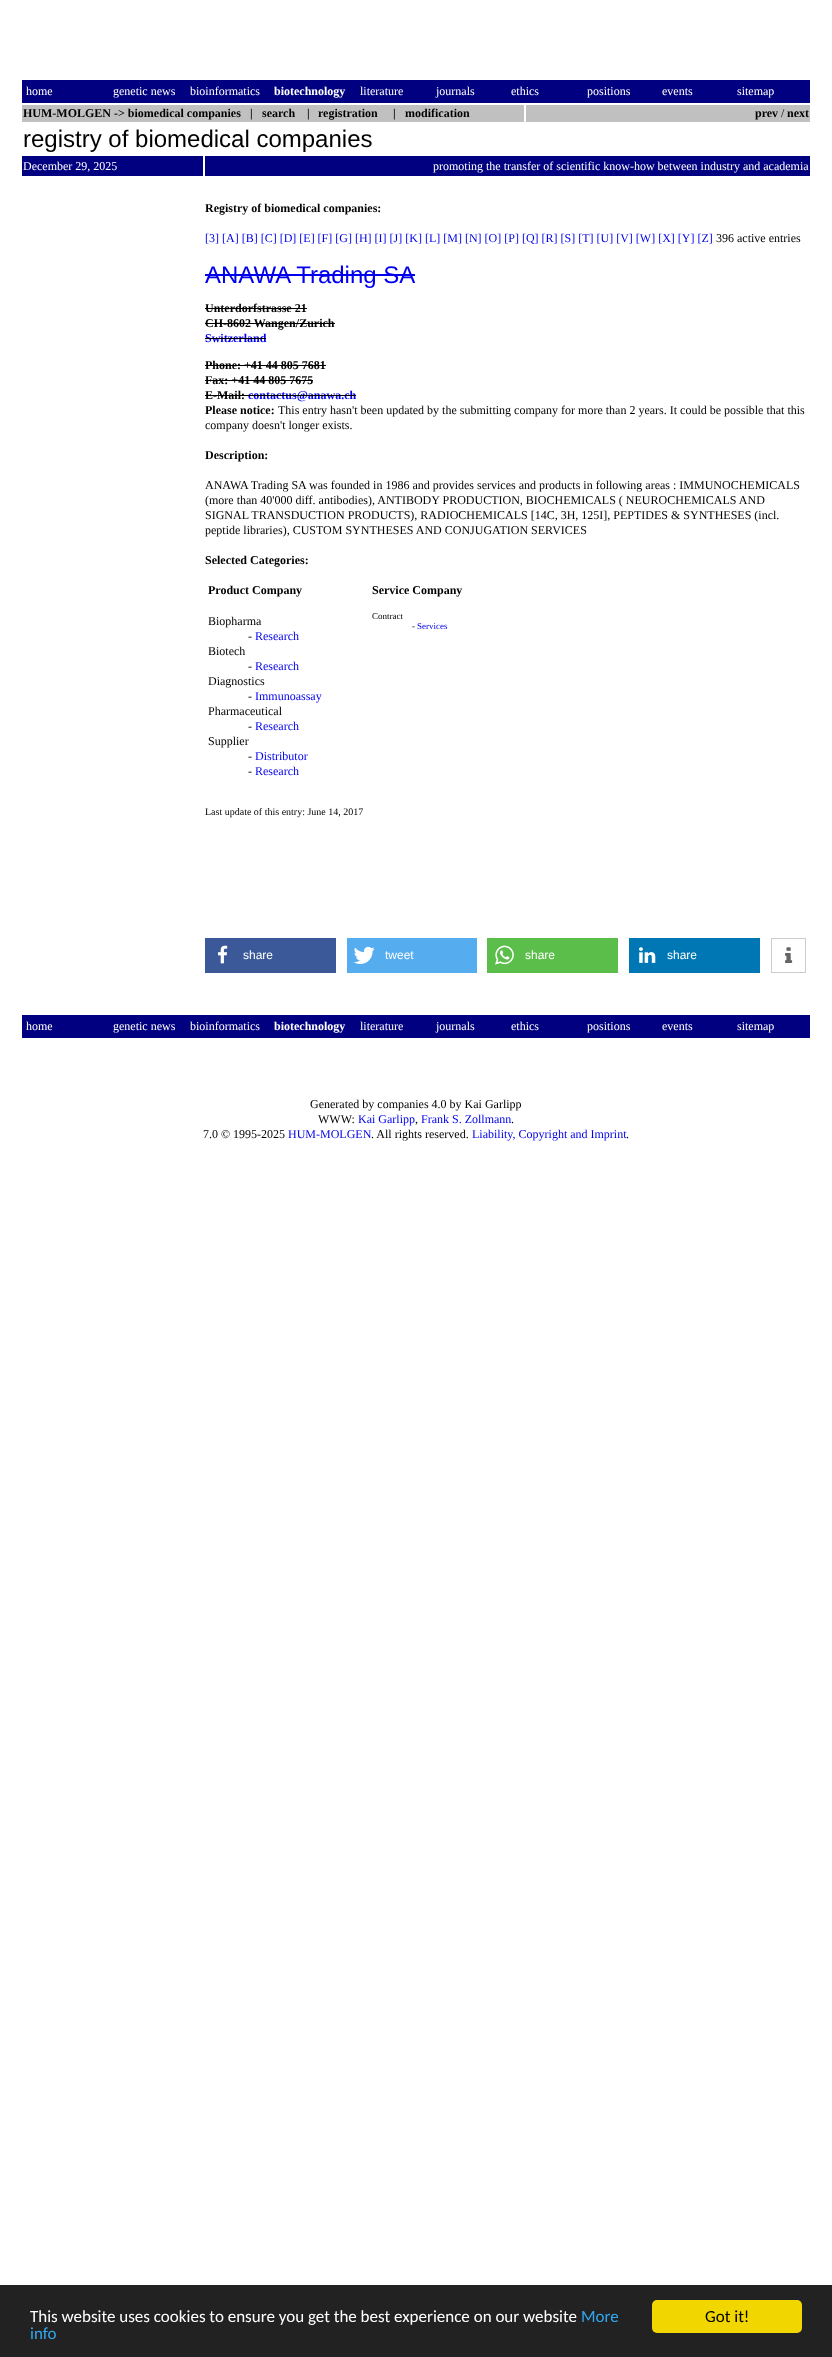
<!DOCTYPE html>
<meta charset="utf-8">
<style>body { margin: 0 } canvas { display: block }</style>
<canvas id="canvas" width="832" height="2357"></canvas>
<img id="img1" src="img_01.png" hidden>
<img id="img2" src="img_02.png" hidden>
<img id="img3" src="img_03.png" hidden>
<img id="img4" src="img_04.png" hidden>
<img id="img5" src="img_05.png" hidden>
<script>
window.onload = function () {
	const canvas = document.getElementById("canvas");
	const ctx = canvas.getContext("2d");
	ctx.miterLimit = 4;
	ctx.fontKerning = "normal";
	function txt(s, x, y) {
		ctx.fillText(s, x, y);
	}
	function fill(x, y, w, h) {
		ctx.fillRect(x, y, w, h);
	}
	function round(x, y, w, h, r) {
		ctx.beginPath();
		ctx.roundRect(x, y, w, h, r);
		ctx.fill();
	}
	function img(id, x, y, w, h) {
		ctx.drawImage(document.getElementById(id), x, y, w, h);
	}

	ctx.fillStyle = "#FFFFFF";
	fill(0, 0, 832, 2357);
	ctx.fillStyle = "#000080";
	fill(22, 80, 788, 23);
	ctx.fillStyle = "#C0C0C0";
	fill(22, 105, 502, 17);
	fill(526, 105, 284, 17);
	ctx.fillStyle = "#000080";
	fill(22, 156, 181, 20);
	fill(205, 156, 605, 20);
	ctx.fillStyle = "#0000EE";
	fill(205, 274, 210, 2);
	ctx.fillStyle = "#000000";
	fill(205, 308, 102, 1);
	fill(205, 323, 130, 1);
	fill(205, 365, 121, 1);
	fill(205, 380, 108, 1);
	fill(205, 395, 43, 1);
	ctx.fillStyle = "#3B5998";
	fill(205, 938, 131, 35);
	img("img1", 218, 945, 10, 19);
	ctx.fillStyle = "#55ACEE";
	fill(347, 938, 130, 35);
	img("img2", 353, 946, 22, 18);
	ctx.fillStyle = "#5CBE4A";
	fill(487, 938, 131, 35);
	img("img3", 495, 945, 19, 20);
	ctx.fillStyle = "#0077B5";
	fill(629, 938, 131, 35);
	img("img4", 639, 947, 17, 16);
	ctx.strokeStyle = "#CCCCCC";
	ctx.strokeRect(771.5, 938.5, 34, 34);
	img("img5", 785, 947, 8, 16);
	ctx.fillStyle = "#000080";
	fill(22, 1015, 788, 23);
	ctx.fillStyle = "#222222";
	fill(0, 2285, 832, 72);
	ctx.fillStyle = "#F1D600";
	round(652, 2300, 150, 33, 5);
	ctx.font = "12px Liberation Serif";
	ctx.fillStyle = "#FFFFFF";
	txt("home", 26, 95);
	txt("genetic news", 113, 95);
	txt("bioinformatics", 190, 95);
	ctx.font = "bold 12px Liberation Serif";
	txt("biotechnology", 274, 95);
	ctx.font = "12px Liberation Serif";
	txt("literature", 360, 95);
	txt("journals", 436, 95);
	txt("ethics", 511, 95);
	txt("positions", 587, 95);
	txt("events", 662, 95);
	txt("sitemap", 737, 95);
	ctx.font = "bold 12px Liberation Serif";
	ctx.fillStyle = "#000000";
	txt("HUM-MOLGEN -> biomedical companies", 23, 117);
	txt("|", 250, 117);
	txt("search", 262, 117);
	txt("|", 307, 117);
	txt("registration", 318, 117);
	txt("|", 393, 117);
	txt("modification", 405, 117);
	txt("prev", 755, 117);
	ctx.font = "12px Liberation Serif";
	txt("/", 781, 117);
	ctx.font = "bold 12px Liberation Serif";
	txt("next", 787, 117);
	ctx.font = "24px Liberation Sans";
	txt("registry of biomedical companies", 23, 147);
	ctx.font = "12px Liberation Serif";
	ctx.fillStyle = "#FFFFFF";
	txt("December 29, 2025", 23, 170);
	txt("promoting the transfer of scientific know-how between industry and academia", 433, 170);
	ctx.font = "bold 12px Liberation Serif";
	ctx.fillStyle = "#000000";
	txt("Registry of biomedical companies:", 205, 212);
	ctx.font = "12px Liberation Serif";
	ctx.fillStyle = "#0000EE";
	txt("[3] [A] [B] [C] [D] [E] [F] [G] [H] [I] [J] [K] [L] [M] [N] [O] [P] [Q] [R] [S] [T] [U] [V] [W] [X] [Y] [Z]", 205, 242);
	ctx.fillStyle = "#000000";
	txt("396 active entries", 716, 242);
	ctx.font = "24px Liberation Sans";
	ctx.fillStyle = "#0000EE";
	txt("ANAWA Trading SA", 205, 283);
	ctx.font = "bold 12px Liberation Serif";
	ctx.fillStyle = "#000000";
	txt("Unterdorfstrasse 21", 205, 312);
	txt("CH-8602 Wangen/Zurich", 205, 327);
	ctx.fillStyle = "#0000EE";
	txt("Switzerland", 205, 342);
	ctx.fillStyle = "#000000";
	fill(205, 338, 61, 1);
	txt("Phone: +41 44 805 7681", 205, 369);
	txt("Fax: +41 44 805 7675", 205, 384);
	txt("E-Mail:", 205, 399);
	ctx.fillStyle = "#0000EE";
	txt("contactus@anawa.ch", 248, 399);
	ctx.fillStyle = "#000000";
	fill(248, 395, 108, 1);
	txt("Please notice:", 205, 414);
	ctx.font = "12px Liberation Serif";
	txt("This entry hasn't been updated by the submitting company for more than 2 years. It could be possible that this", 278, 414);
	txt("company doesn't longer exists.", 205, 429);
	ctx.font = "bold 12px Liberation Serif";
	txt("Description:", 205, 459);
	ctx.font = "12px Liberation Serif";
	txt("ANAWA Trading SA was founded in 1986 and provides services and products in following areas : IMMUNOCHEMICALS", 205, 489);
	txt("(more than 40'000 diff. antibodies), ANTIBODY PRODUCTION, BIOCHEMICALS ( NEUROCHEMICALS AND", 205, 504);
	txt("SIGNAL TRANSDUCTION PRODUCTS), RADIOCHEMICALS [14C, 3H, 125I], PEPTIDES & SYNTHESES (incl.", 205, 519);
	txt("peptide libraries), CUSTOM SYNTHESES AND CONJUGATION SERVICES", 205, 534);
	ctx.font = "bold 12px Liberation Serif";
	txt("Selected Categories:", 205, 564);
	txt("Product Company", 208, 594);
	txt("Service Company", 372, 594);
	ctx.font = "12px Liberation Serif";
	txt("Biopharma", 208, 625);
	txt("-", 248, 640);
	ctx.fillStyle = "#0000EE";
	txt("Research", 255, 640);
	ctx.fillStyle = "#000000";
	txt("Biotech", 208, 655);
	txt("-", 248, 670);
	ctx.fillStyle = "#0000EE";
	txt("Research", 255, 670);
	ctx.fillStyle = "#000000";
	txt("Diagnostics", 208, 685);
	txt("-", 248, 700);
	ctx.fillStyle = "#0000EE";
	txt("Immunoassay", 255, 700);
	ctx.fillStyle = "#000000";
	txt("Pharmaceutical", 208, 715);
	txt("-", 248, 730);
	ctx.fillStyle = "#0000EE";
	txt("Research", 255, 730);
	ctx.fillStyle = "#000000";
	txt("Supplier", 208, 745);
	txt("-", 248, 760);
	ctx.fillStyle = "#0000EE";
	txt("Distributor", 255, 760);
	ctx.fillStyle = "#000000";
	txt("-", 248, 775);
	ctx.fillStyle = "#0000EE";
	txt("Research", 255, 775);
	ctx.font = "9px Liberation Serif";
	ctx.fillStyle = "#000000";
	txt("Contract", 372, 619);
	txt("-", 412, 629);
	ctx.fillStyle = "#0000EE";
	txt("Services", 417, 629);
	ctx.font = "10px Liberation Serif";
	ctx.fillStyle = "#000000";
	txt("Last update of this entry: June 14, 2017", 205, 815);
	ctx.font = "12px Liberation Sans";
	ctx.fillStyle = "#FFFFFF";
	txt("share", 243, 959);
	txt("tweet", 385, 959);
	txt("share", 525, 959);
	txt("share", 667, 959);
	ctx.font = "12px Liberation Serif";
	txt("home", 26, 1030);
	txt("genetic news", 113, 1030);
	txt("bioinformatics", 190, 1030);
	ctx.font = "bold 12px Liberation Serif";
	txt("biotechnology", 274, 1030);
	ctx.font = "12px Liberation Serif";
	txt("literature", 360, 1030);
	txt("journals", 436, 1030);
	txt("ethics", 511, 1030);
	txt("positions", 587, 1030);
	txt("events", 662, 1030);
	txt("sitemap", 737, 1030);
	ctx.fillStyle = "#000000";
	txt("Generated by companies 4.0 by Kai Garlipp", 310, 1108);
	txt("WWW:", 318, 1123);
	ctx.fillStyle = "#0000EE";
	txt("Kai Garlipp", 358, 1123);
	ctx.fillStyle = "#000000";
	txt(",", 415, 1123);
	ctx.fillStyle = "#0000EE";
	txt("Frank S. Zollmann", 421, 1123);
	ctx.fillStyle = "#000000";
	txt(".", 511, 1123);
	txt("7.0 © 1995-2025", 203, 1138);
	ctx.fillStyle = "#0000EE";
	txt("HUM-MOLGEN", 288, 1138);
	ctx.fillStyle = "#000000";
	txt(". All rights reserved.", 371, 1138);
	ctx.fillStyle = "#0000EE";
	txt("Liability, Copyright and Imprint", 472, 1138);
	ctx.fillStyle = "#000000";
	txt(".", 626, 1138);
	ctx.font = "17px Carlito";
	ctx.fillStyle = "#FFFFFF";
	txt("This website uses cookies to ensure you get the best experience on our website", 30, 2322);
	ctx.fillStyle = "#31A8F0";
	txt("More", 581, 2322);
	txt("info", 30, 2339);
	ctx.fillStyle = "#000000";
	txt("Got it!", 705, 2322);
};
</script>
